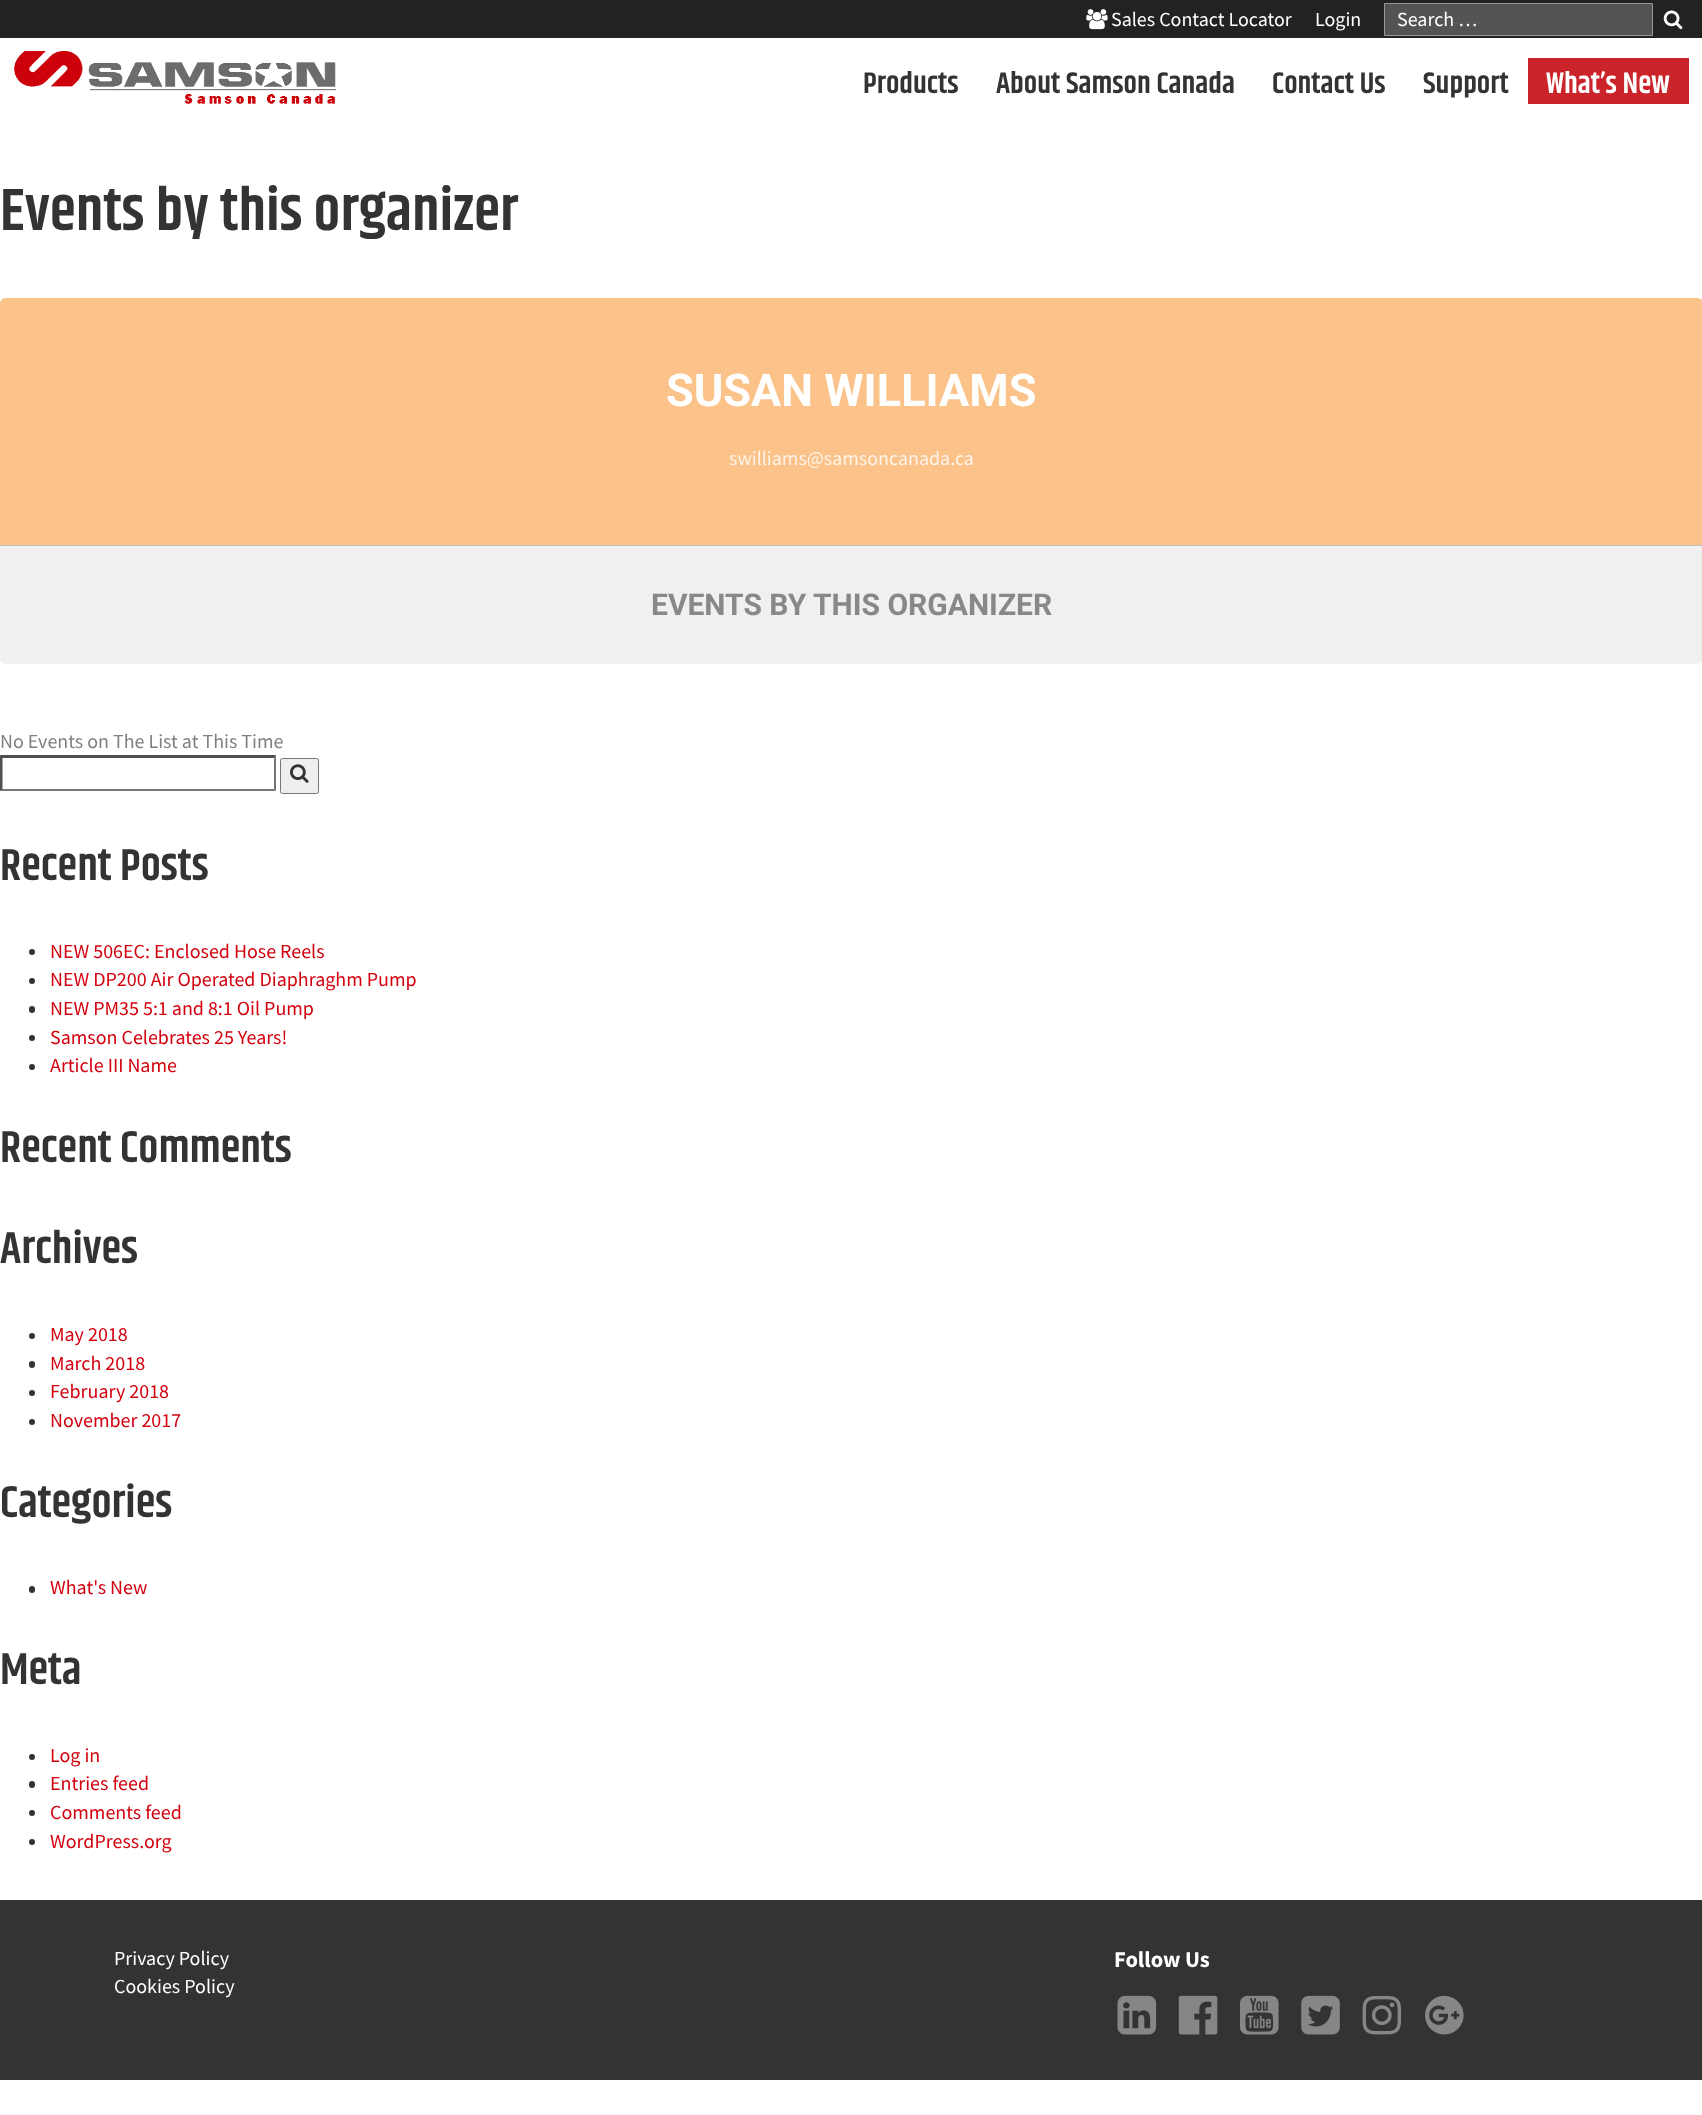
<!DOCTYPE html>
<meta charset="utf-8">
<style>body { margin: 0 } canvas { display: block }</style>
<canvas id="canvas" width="1702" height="2115"></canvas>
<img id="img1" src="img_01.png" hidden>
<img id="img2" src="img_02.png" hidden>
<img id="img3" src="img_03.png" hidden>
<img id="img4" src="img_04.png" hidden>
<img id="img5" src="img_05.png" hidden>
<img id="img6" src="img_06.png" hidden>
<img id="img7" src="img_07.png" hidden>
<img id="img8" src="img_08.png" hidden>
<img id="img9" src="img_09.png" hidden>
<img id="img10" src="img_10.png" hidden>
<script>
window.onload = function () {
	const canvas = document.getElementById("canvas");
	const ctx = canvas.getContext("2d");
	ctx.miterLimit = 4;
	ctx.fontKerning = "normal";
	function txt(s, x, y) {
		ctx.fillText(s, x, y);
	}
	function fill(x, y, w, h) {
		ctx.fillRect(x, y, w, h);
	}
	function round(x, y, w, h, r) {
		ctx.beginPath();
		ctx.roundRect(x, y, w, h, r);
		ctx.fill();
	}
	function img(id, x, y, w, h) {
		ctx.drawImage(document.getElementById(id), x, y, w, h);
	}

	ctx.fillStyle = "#FFFFFF";
	fill(0, 0, 1702, 2115);
	ctx.fillStyle = "#222222";
	fill(0, 0, 1702, 38);
	img("img1", 1086, 9, 22, 21);
	ctx.fillStyle = "#555353";
	ctx.beginPath();
	ctx.rect(1384.5, 3.5, 268, 32);
	ctx.fill();
	ctx.strokeStyle = "#979797";
	ctx.stroke();
	img("img2", 1663, 10, 20, 20);
	img("img3", 14, 51, 322, 53);
	ctx.fillStyle = "#CB232A";
	fill(1528, 58, 161, 46);
	ctx.fillStyle = "#DCDCDC";
	ctx.beginPath();
	ctx.moveTo(6, 298);
	ctx.lineTo(1697, 298);
	ctx.bezierCurveTo(1700.5, 298, 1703, 300.5, 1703, 304);
	ctx.lineTo(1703, 545);
	ctx.lineTo(0, 545);
	ctx.lineTo(0, 304);
	ctx.bezierCurveTo(0, 300.5, 2.5, 298, 6, 298);
	ctx.closePath();
	ctx.fill();
	ctx.fillStyle = "rgba(255, 191, 128, 0.89)";
	ctx.beginPath();
	ctx.moveTo(6, 298);
	ctx.lineTo(1697, 298);
	ctx.bezierCurveTo(1700.5, 298, 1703, 300.5, 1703, 304);
	ctx.lineTo(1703, 545);
	ctx.lineTo(0, 545);
	ctx.lineTo(0, 304);
	ctx.bezierCurveTo(0, 300.5, 2.5, 298, 6, 298);
	ctx.closePath();
	ctx.fill();
	ctx.fillStyle = "#F0F0F0";
	ctx.beginPath();
	ctx.moveTo(0, 545);
	ctx.lineTo(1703, 545);
	ctx.lineTo(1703, 658);
	ctx.bezierCurveTo(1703, 661.5, 1700.5, 664, 1697, 664);
	ctx.lineTo(6, 664);
	ctx.bezierCurveTo(2.5, 664, 0, 661.5, 0, 658);
	ctx.closePath();
	ctx.fill();
	ctx.fillStyle = "#C1C1C1";
	fill(0, 545, 1702, 1);
	ctx.fillStyle = "#4F4F4F";
	ctx.beginPath();
	ctx.moveTo(0, 755);
	ctx.lineTo(276, 755);
	ctx.lineTo(274, 758);
	ctx.lineTo(2, 758);
	ctx.closePath();
	ctx.fill();
	ctx.fillStyle = "#767676";
	ctx.beginPath();
	ctx.moveTo(276, 755);
	ctx.lineTo(276, 791);
	ctx.lineTo(274, 789);
	ctx.lineTo(274, 757.5);
	ctx.closePath();
	ctx.fill();
	ctx.beginPath();
	ctx.moveTo(276, 791);
	ctx.lineTo(0, 791);
	ctx.lineTo(2, 789);
	ctx.lineTo(274, 789);
	ctx.closePath();
	ctx.fill();
	ctx.fillStyle = "#4F4F4F";
	ctx.beginPath();
	ctx.moveTo(0, 791);
	ctx.lineTo(0, 755);
	ctx.lineTo(2.5, 757.5);
	ctx.lineTo(2.5, 789);
	ctx.closePath();
	ctx.fill();
	ctx.fillStyle = "#EFEFEF";
	ctx.beginPath();
	ctx.roundRect(280.5, 758.5, 38, 35, 2);
	ctx.fill();
	ctx.strokeStyle = "#767676";
	ctx.stroke();
	img("img4", 290, 764, 19, 19);
	ctx.fillStyle = "#333333";
	ctx.beginPath();
	ctx.arc(32, 952, 3, 0, Math.PI * 2);
	ctx.fill();
	ctx.beginPath();
	ctx.arc(32, 981, 3, 0, Math.PI * 2);
	ctx.fill();
	round(29, 1006, 6, 7, 3);
	ctx.beginPath();
	ctx.arc(32, 1038, 3, 0, Math.PI * 2);
	ctx.fill();
	ctx.beginPath();
	ctx.arc(32, 1067, 3, 0, Math.PI * 2);
	ctx.fill();
	ctx.beginPath();
	ctx.arc(32, 1336, 3, 0, Math.PI * 2);
	ctx.fill();
	round(29, 1361, 6, 7, 3);
	ctx.beginPath();
	ctx.arc(32, 1393, 3, 0, Math.PI * 2);
	ctx.fill();
	ctx.beginPath();
	ctx.arc(32, 1422, 3, 0, Math.PI * 2);
	ctx.fill();
	round(29, 1586, 6, 7, 3);
	ctx.beginPath();
	ctx.arc(32, 1757, 3, 0, Math.PI * 2);
	ctx.fill();
	round(29, 1781, 6, 7, 3);
	ctx.beginPath();
	ctx.arc(32, 1813, 3, 0, Math.PI * 2);
	ctx.fill();
	ctx.beginPath();
	ctx.arc(32, 1842, 3, 0, Math.PI * 2);
	ctx.fill();
	fill(0, 1900, 1702, 180);
	img("img5", 1117, 1995, 40, 40);
	img("img6", 1178, 1995, 40, 40);
	img("img7", 1240, 1995, 39, 40);
	img("img8", 1301, 1995, 39, 40);
	img("img9", 1362, 1995, 40, 40);
	img("img10", 1425, 1995, 39, 40);
	ctx.font = "20px Source Sans Pro";
	ctx.fillStyle = "#FFFFFF";
	txt("Sales Contact Locator", 1111, 26);
	txt("Login", 1315, 26);
	txt("Search …", 1397, 26);
	ctx.font = "600 30px Khand";
	ctx.fillStyle = "#333333";
	txt("Products", 863, 93);
	txt("About Samson Canada", 996, 93);
	txt("Contact Us", 1272, 93);
	txt("Support", 1423, 93);
	ctx.fillStyle = "#FFFFFF";
	txt("What’s New", 1546, 93);
	ctx.font = "600 60px Khand";
	ctx.fillStyle = "#333333";
	txt("Events by this organizer", 0, 230);
	ctx.font = "bold 45px Roboto";
	ctx.fillStyle = "#FFFFFF";
	txt("SUSAN WILLIAMS", 666, 406);
	ctx.font = "20px Source Sans Pro";
	ctx.fillStyle = "#FEF3E8";
	txt("swilliams@samsoncanada.ca", 729, 465);
	ctx.font = "bold 30px Roboto";
	ctx.fillStyle = "#888888";
	txt("EVENTS BY THIS ORGANIZER", 651, 615);
	ctx.font = "20px Source Sans Pro";
	ctx.fillStyle = "#808080";
	txt("No Events on The List at This Time", 0, 748);
	ctx.font = "600 45px Khand";
	ctx.fillStyle = "#333333";
	txt("Recent Posts", 0, 880);
	ctx.font = "20px Source Sans Pro";
	ctx.fillStyle = "#D3000D";
	txt("NEW 506EC: Enclosed Hose Reels", 50, 958);
	txt("NEW DP200 Air Operated Diaphraghm Pump", 50, 986);
	txt("NEW PM35 5:1 and 8:1 Oil Pump", 50, 1015);
	txt("Samson Celebrates 25 Years!", 50, 1044);
	txt("Article III Name", 50, 1072);
	ctx.font = "600 45px Khand";
	ctx.fillStyle = "#333333";
	txt("Recent Comments", 0, 1162);
	txt("Archives", 0, 1263);
	ctx.font = "20px Source Sans Pro";
	ctx.fillStyle = "#D3000D";
	txt("May 2018", 50, 1341);
	txt("March 2018", 50, 1370);
	txt("February 2018", 50, 1398);
	txt("November 2017", 50, 1427);
	ctx.font = "600 45px Khand";
	ctx.fillStyle = "#333333";
	txt("Categories", 0, 1517);
	ctx.font = "20px Source Sans Pro";
	ctx.fillStyle = "#D3000D";
	txt("What's New", 50, 1594);
	ctx.font = "600 45px Khand";
	ctx.fillStyle = "#333333";
	txt("Meta", 0, 1684);
	ctx.font = "20px Source Sans Pro";
	ctx.fillStyle = "#D3000D";
	txt("Log in", 50, 1762);
	txt("Entries feed", 50, 1790);
	txt("Comments feed", 50, 1819);
	txt("WordPress.org", 50, 1848);
	ctx.fillStyle = "#FFFFFF";
	txt("Privacy Policy", 114, 1965);
	txt("Cookies Policy", 114, 1993);
	ctx.font = "bold 22.5px Source Sans Pro";
	txt("Follow Us", 1114, 1967);
};
</script>
